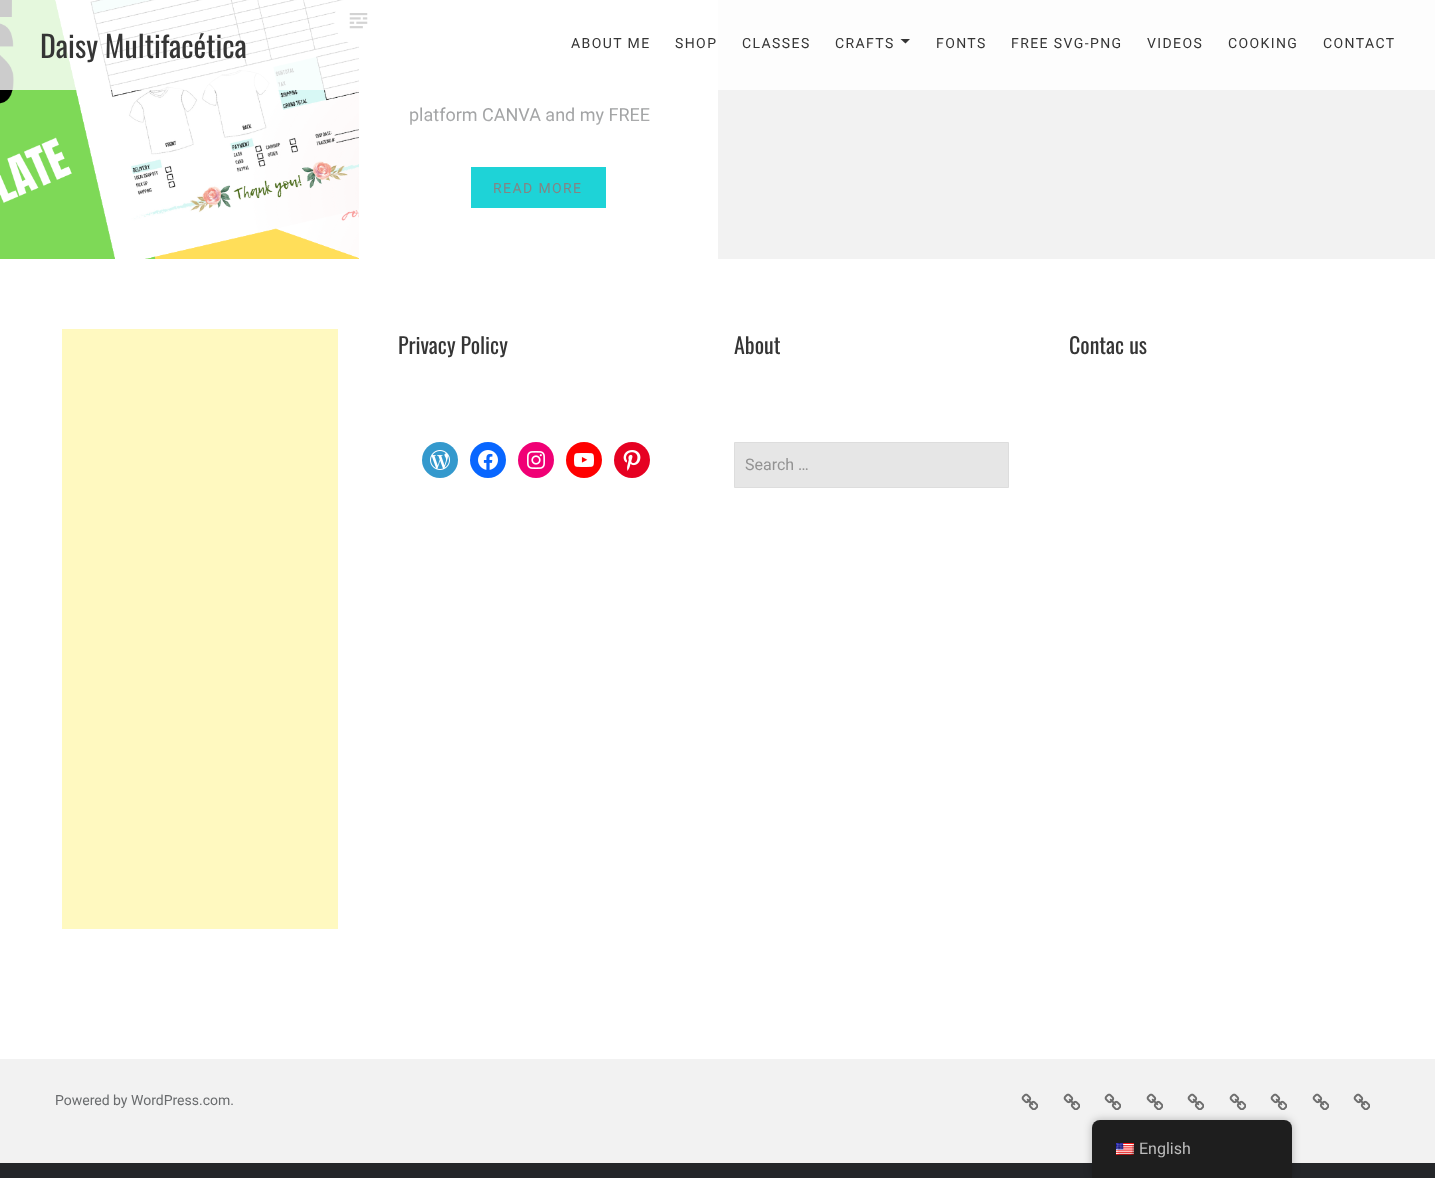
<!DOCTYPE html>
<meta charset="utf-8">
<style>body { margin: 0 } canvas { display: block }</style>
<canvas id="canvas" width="1435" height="1178"></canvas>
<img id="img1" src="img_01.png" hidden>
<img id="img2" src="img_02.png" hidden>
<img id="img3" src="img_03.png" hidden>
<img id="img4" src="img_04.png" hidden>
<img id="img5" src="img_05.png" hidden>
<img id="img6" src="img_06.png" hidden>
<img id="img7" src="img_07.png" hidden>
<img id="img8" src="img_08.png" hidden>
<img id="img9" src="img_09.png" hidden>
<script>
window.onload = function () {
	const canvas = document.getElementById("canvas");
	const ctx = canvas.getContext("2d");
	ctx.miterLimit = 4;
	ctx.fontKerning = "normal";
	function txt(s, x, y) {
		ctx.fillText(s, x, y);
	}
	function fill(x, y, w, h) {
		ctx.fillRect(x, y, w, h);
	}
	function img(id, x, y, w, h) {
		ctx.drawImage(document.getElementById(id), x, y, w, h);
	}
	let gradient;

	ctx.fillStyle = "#242629";
	fill(0, 0, 1435, 1178);
	ctx.fillStyle = "#FFFFFF";
	fill(0, 259, 1435, 800);
	ctx.fillStyle = "#F2F2F2";
	fill(718, 0, 717, 259);
	ctx.fillStyle = "#FFFFFF";
	fill(359, 0, 359, 259);
	img("img1", 0, 0, 359, 259);
	ctx.beginPath();
	ctx.arc(359, 20, 25, 0, Math.PI * 2);
	ctx.fill();
	ctx.fillStyle = "rgba(255, 255, 255, 0.8)";
	fill(0, 0, 1435, 90);
	ctx.fillStyle = "#353535";
	ctx.beginPath();
	ctx.moveTo(900.5, 39);
	ctx.lineTo(910, 39);
	ctx.lineTo(905.5, 43.5);
	ctx.closePath();
	ctx.fill();
	img("img2", 349, 13, 19, 16);
	ctx.fillStyle = "#1ED3D7";
	fill(471, 167, 135, 41);
	ctx.fillStyle = "#FFF9C0";
	fill(62, 329, 276, 600);
	ctx.fillStyle = "#3499CD";
	ctx.beginPath();
	ctx.arc(440, 460, 18, 0, Math.PI * 2);
	ctx.fill();
	img("img3", 430, 450, 20, 20);
	ctx.fillStyle = "#0866FF";
	ctx.beginPath();
	ctx.arc(488, 460, 18, 0, Math.PI * 2);
	ctx.fill();
	img("img4", 478, 450, 20, 20);
	ctx.fillStyle = "#F00075";
	ctx.beginPath();
	ctx.arc(536, 460, 18, 0, Math.PI * 2);
	ctx.fill();
	img("img5", 527, 451, 18, 18);
	ctx.fillStyle = "#FF0000";
	ctx.beginPath();
	ctx.arc(584, 460, 18, 0, Math.PI * 2);
	ctx.fill();
	img("img6", 574, 453, 20, 14);
	ctx.fillStyle = "#E60122";
	ctx.beginPath();
	ctx.arc(632, 460, 18, 0, Math.PI * 2);
	ctx.fill();
	img("img7", 623, 450, 18, 21);
	ctx.fillStyle = "#E6E6E6";
	ctx.beginPath();
	ctx.rect(734.5, 442.5, 274, 45);
	ctx.fill();
	ctx.strokeStyle = "#DDDDDD";
	ctx.stroke();
	ctx.fillStyle = "#F2F2F2";
	fill(0, 1059, 1435, 104);
	img("img8", 1021, 1093, 17, 17);
	img("img8", 1063, 1093, 17, 17);
	img("img8", 1104, 1093, 17, 17);
	img("img8", 1146, 1093, 17, 17);
	img("img8", 1187, 1093, 17, 17);
	img("img8", 1229, 1093, 17, 17);
	img("img8", 1270, 1093, 17, 17);
	img("img8", 1312, 1093, 17, 17);
	img("img8", 1353, 1093, 17, 17);
	ctx.fillStyle = "rgba(0, 0, 0, 0.25)";
	ctx.filter = "blur(4px)";
	ctx.beginPath();
	ctx.roundRect(1092, 1120, 200, 58, 8);
	ctx.fill();
	ctx.filter = "none";
	ctx.fillStyle = "#1E1E1E";
	ctx.beginPath();
	ctx.roundRect(1092, 1120, 200, 58, [8, 8, 0, 0]);
	ctx.fill();
	img("img9", 1116, 1143, 18, 12);
	ctx.font = "30px Oswald";
	ctx.fillStyle = "#353535";
	txt("Daisy Multifacética", 40, 58);
	ctx.letterSpacing = "1.4px";
	ctx.font = "14px Roboto";
	txt("ABOUT ME", 571, 48);
	txt("SHOP", 675, 48);
	txt("CLASSES", 742, 48);
	txt("CRAFTS", 835, 48);
	txt("FONTS", 936, 48);
	txt("FREE SVG-PNG", 1011, 48);
	txt("VIDEOS", 1147, 48);
	txt("COOKING", 1228, 48);
	txt("CONTACT", 1323, 48);
	ctx.letterSpacing = "0px";
	ctx.font = "18px Roboto";
	ctx.fillStyle = "#6A6C6E";
	txt("platform CANVA and my FREE", 409, 121);
	ctx.letterSpacing = "1.4px";
	ctx.font = "14px Roboto";
	ctx.fillStyle = "#848484";
	txt("READ MORE", 493, 193);
	gradient = ctx.createLinearGradient(539, 56, 539, 208);
	gradient.addColorStop(0, "rgba(255, 255, 255, 0)");
	gradient.addColorStop(1, "#FFFFFF");
	ctx.fillStyle = gradient;
	fill(410, 107, 240, 18);
	ctx.letterSpacing = "0px";
	ctx.font = "22px Oswald";
	ctx.fillStyle = "#353535";
	txt("Privacy Policy", 398, 354);
	txt("About", 734, 354);
	txt("Contac us", 1069, 354);
	ctx.font = "16px Roboto";
	ctx.fillStyle = "#939393";
	txt("Search …", 745, 470);
	ctx.font = "14px Roboto";
	ctx.fillStyle = "#6A6C6E";
	txt("Powered by WordPress.com.", 55, 1105);
	ctx.font = "16px Roboto";
	ctx.fillStyle = "#BDBDBD";
	txt("English", 1139, 1154);
};
</script>
